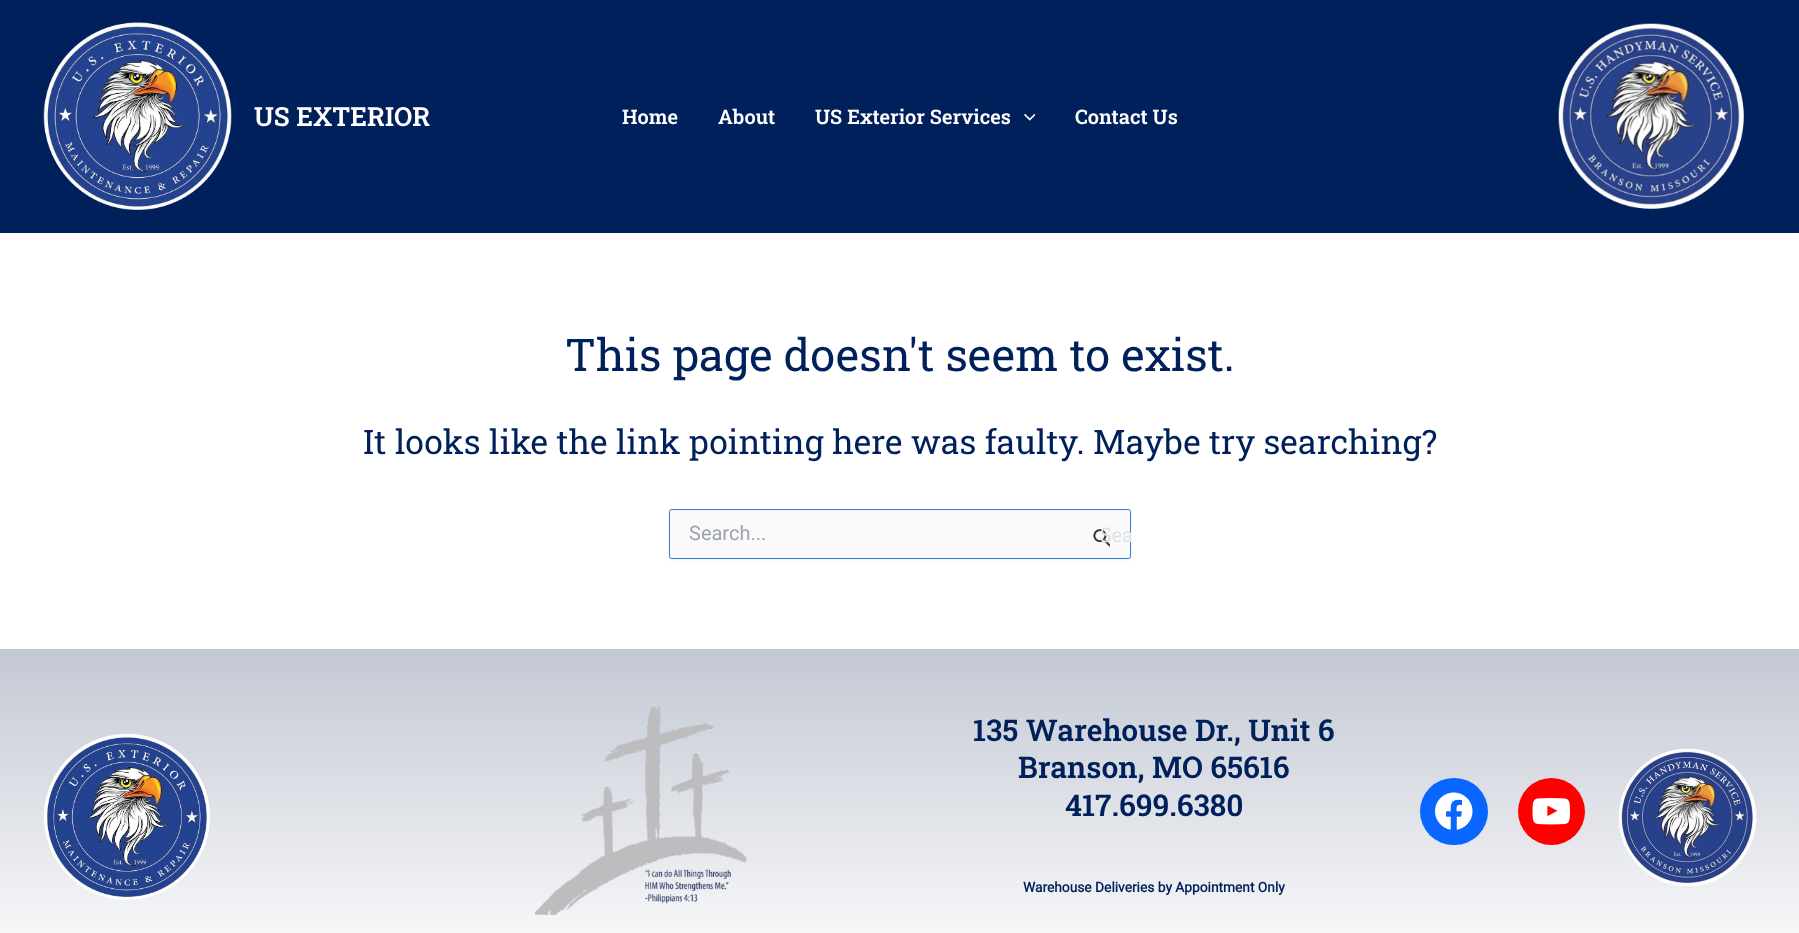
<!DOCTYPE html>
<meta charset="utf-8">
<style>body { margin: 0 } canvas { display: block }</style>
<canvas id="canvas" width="1799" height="933"></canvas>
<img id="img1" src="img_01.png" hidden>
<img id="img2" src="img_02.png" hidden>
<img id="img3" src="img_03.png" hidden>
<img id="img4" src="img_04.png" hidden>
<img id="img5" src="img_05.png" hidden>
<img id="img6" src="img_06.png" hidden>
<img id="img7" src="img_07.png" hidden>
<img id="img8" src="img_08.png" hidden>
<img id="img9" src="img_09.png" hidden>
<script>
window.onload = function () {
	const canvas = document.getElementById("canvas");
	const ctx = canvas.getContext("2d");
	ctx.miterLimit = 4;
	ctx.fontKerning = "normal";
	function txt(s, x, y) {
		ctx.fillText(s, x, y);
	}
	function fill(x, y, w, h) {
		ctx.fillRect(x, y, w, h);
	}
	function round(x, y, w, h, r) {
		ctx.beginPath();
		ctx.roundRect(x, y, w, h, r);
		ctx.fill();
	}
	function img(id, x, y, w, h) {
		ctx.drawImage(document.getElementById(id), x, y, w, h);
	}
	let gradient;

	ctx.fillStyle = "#FFFFFF";
	fill(0, 0, 1799, 933);
	ctx.fillStyle = "#00205B";
	fill(0, 0, 1799, 233);
	img("img1", 43, 22, 189, 188);
	img("img2", 1024, 113, 11, 8);
	img("img3", 1558, 23, 186, 186);
	ctx.fillStyle = "rgba(0, 0, 0, 0.05)";
	ctx.filter = "blur(1px)";
	ctx.beginPath();
	ctx.roundRect(669, 510, 462, 50, 2.5);
	ctx.fill();
	ctx.filter = "none";
	ctx.fillStyle = "#FAFAFA";
	ctx.beginPath();
	ctx.roundRect(669.5, 509.5, 461, 49, 2);
	ctx.fill();
	ctx.strokeStyle = "#337CD9";
	ctx.stroke();
	img("img4", 1093, 529, 17, 18);
	gradient = ctx.createLinearGradient(900, 649, 900, 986);
	gradient.addColorStop(0, "#C3C8D3");
	gradient.addColorStop(1, "#FFFFFF");
	ctx.fillStyle = gradient;
	fill(0, 649, 1799, 284);
	img("img5", 43, 733, 167, 167);
	img("img6", 535, 706, 212, 209);
	ctx.fillStyle = "#0866FF";
	round(1420, 778, 68, 67, 33.5);
	img("img7", 1435, 792, 38, 38);
	ctx.fillStyle = "#FF0000";
	ctx.beginPath();
	ctx.arc(1551.5, 811.5, 33.5, 0, Math.PI * 2);
	ctx.fill();
	img("img8", 1532, 798, 38, 27);
	img("img9", 1618, 748, 139, 139);
	ctx.font = "600 26.25px Roboto Slab";
	ctx.fillStyle = "#FFFFFF";
	txt("US EXTERIOR", 254, 126);
	ctx.font = "600 20px Roboto Slab";
	txt("Home", 622, 124);
	txt("About", 718, 124);
	txt("US Exterior Services", 815, 124);
	txt("Contact Us", 1075, 124);
	ctx.font = "45px Roboto Slab";
	ctx.fillStyle = "#00205B";
	txt("This page doesn't seem to exist.", 565, 371);
	ctx.font = "33.75px Roboto Slab";
	txt("It looks like the link pointing here was faulty. Maybe try searching?", 363, 454);
	ctx.font = "20px Roboto";
	ctx.fillStyle = "#9CA3AF";
	txt("Search...", 689, 540);
	ctx.save();
	ctx.beginPath();
	ctx.roundRect(1075, 509, 56, 52, 2.5);
	ctx.clip();
	ctx.font = "20px Roboto Slab";
	ctx.fillStyle = "#DEE1E5";
	txt("Sea", 1100, 542);
	ctx.restore();
	ctx.font = "600 30px Roboto Slab";
	ctx.fillStyle = "#00205B";
	txt("135 Warehouse Dr., Unit 6", 973, 741);
	txt("Branson, MO 65616", 1018, 778);
	txt("417.699.6380", 1065, 816);
	ctx.font = "bold 13.75px Roboto";
	txt("Warehouse Deliveries by Appointment Only", 1023, 892);
};
</script>
